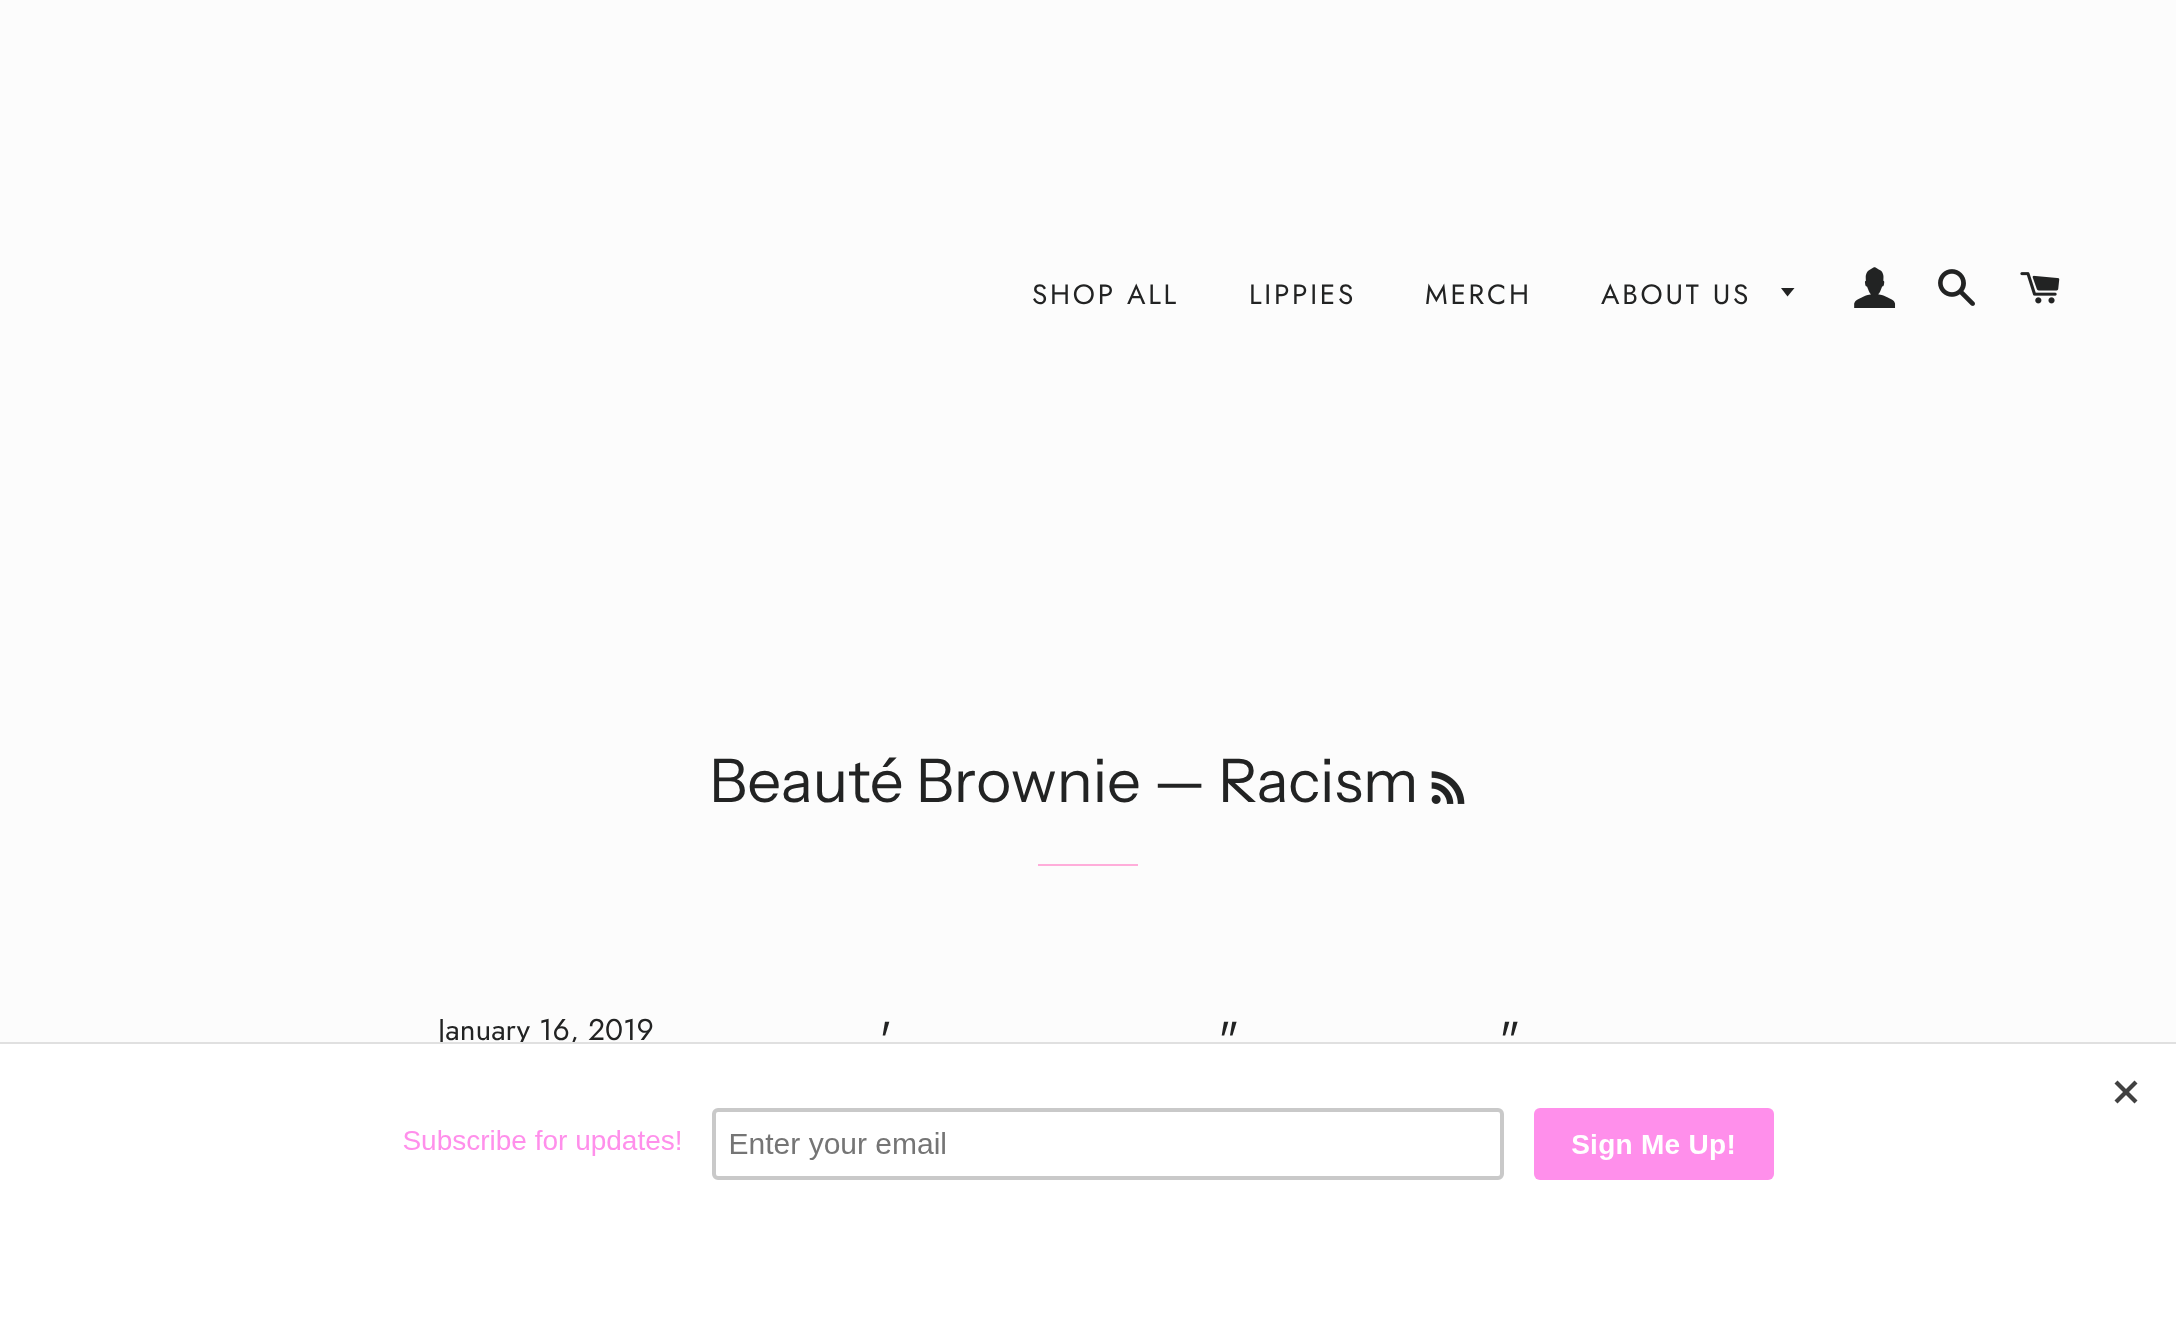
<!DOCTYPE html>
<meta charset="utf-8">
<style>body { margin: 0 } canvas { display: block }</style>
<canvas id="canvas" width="2176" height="1344"></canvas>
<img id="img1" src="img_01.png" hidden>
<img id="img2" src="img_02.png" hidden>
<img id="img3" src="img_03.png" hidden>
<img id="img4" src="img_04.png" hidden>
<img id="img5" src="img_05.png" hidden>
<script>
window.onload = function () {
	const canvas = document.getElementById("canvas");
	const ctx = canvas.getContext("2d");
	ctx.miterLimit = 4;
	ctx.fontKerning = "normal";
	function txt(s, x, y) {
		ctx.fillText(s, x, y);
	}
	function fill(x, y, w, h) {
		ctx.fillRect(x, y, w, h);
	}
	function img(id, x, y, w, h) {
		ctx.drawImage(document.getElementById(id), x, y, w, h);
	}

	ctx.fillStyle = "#FCFCFC";
	fill(0, 0, 2176, 1344);
	ctx.fillStyle = "#222323";
	ctx.beginPath();
	ctx.moveTo(1781, 288);
	ctx.lineTo(1787.5, 296.5);
	ctx.lineTo(1794.5, 288);
	ctx.closePath();
	ctx.fill();
	img("img1", 1854, 267, 42, 41);
	img("img2", 1938, 269, 37, 37);
	img("img3", 2020, 272, 40, 32);
	img("img4", 1431, 771, 34, 33);
	ctx.fillStyle = "#FFADDA";
	fill(1038, 864, 100, 2);
	ctx.letterSpacing = "2.75px";
	ctx.font = "28px Jost";
	ctx.fillStyle = "#222323";
	txt("SHOP ALL", 1032, 304);
	txt("LIPPIES", 1249, 304);
	txt("MERCH", 1425, 304);
	txt("ABOUT US", 1601, 304);
	ctx.letterSpacing = "0px";
	ctx.font = "60px Instrument Sans";
	txt("Beauté Brownie — Racism", 709, 802);
	ctx.font = "30px Jost";
	txt("January 16, 2019", 438, 1040);
	ctx.letterSpacing = "5px";
	ctx.font = "46px Jost";
	txt("'", 879, 1054);
	txt("\"", 1218, 1054);
	txt("\"", 1499, 1054);
	ctx.fillStyle = "#FFFFFF";
	fill(0, 1044, 2176, 300);
	ctx.fillStyle = "#E0E0E0";
	fill(0, 1042, 2176, 2);
	img("img5", 403, 1108, 1371, 72);
	ctx.fillStyle = "#414141";
	ctx.beginPath();
	ctx.moveTo(2134.5, 1080.5);
	ctx.lineTo(2137.5, 1083.5);
	ctx.lineTo(2117.5, 1103.5);
	ctx.lineTo(2114.5, 1100.5);
	ctx.closePath();
	ctx.fill();
	ctx.beginPath();
	ctx.moveTo(2114.5, 1083.5);
	ctx.lineTo(2117.5, 1080.5);
	ctx.lineTo(2137.5, 1100.5);
	ctx.lineTo(2134.5, 1103.5);
	ctx.closePath();
	ctx.fill();
};
</script>
